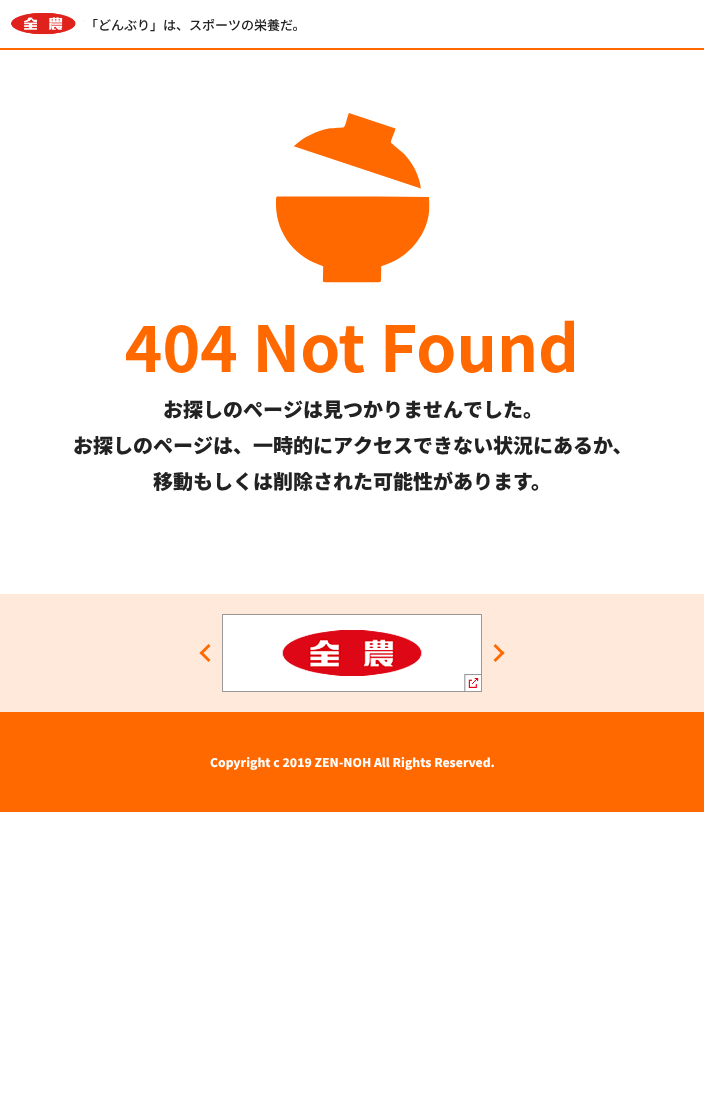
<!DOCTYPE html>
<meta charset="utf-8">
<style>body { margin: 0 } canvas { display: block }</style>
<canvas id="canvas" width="704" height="1102"></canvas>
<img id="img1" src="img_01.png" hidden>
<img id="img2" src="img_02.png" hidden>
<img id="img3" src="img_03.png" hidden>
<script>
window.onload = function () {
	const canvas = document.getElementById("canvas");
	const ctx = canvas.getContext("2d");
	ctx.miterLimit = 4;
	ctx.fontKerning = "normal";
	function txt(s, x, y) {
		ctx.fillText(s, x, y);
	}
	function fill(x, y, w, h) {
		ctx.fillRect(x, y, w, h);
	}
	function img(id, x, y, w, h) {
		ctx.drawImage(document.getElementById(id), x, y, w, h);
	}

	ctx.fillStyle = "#FFFFFF";
	fill(0, 0, 704, 1102);
	ctx.fillStyle = "#FF6900";
	fill(0, 48, 704, 2);
	img("img1", 11, 13, 74, 22);
	img("img2", 126, 113, 448, 260);
	ctx.fillStyle = "#FFE9DA";
	fill(0, 594, 704, 118);
	ctx.fillStyle = "#FF6900";
	ctx.beginPath();
	ctx.moveTo(210.5, 660);
	ctx.lineTo(208.5, 662);
	ctx.lineTo(199.5, 653);
	ctx.lineTo(201.5, 651);
	ctx.closePath();
	ctx.fill();
	ctx.beginPath();
	ctx.moveTo(210.5, 646);
	ctx.lineTo(201.5, 655);
	ctx.lineTo(199.5, 653);
	ctx.lineTo(208.5, 644);
	ctx.closePath();
	ctx.fill();
	ctx.strokeStyle = "#98989B";
	ctx.strokeRect(222.5, 614.5, 259, 77);
	img("img3", 223, 615, 258, 76);
	ctx.beginPath();
	ctx.moveTo(493.5, 646);
	ctx.lineTo(495.5, 644);
	ctx.lineTo(504.5, 653);
	ctx.lineTo(502.5, 655);
	ctx.closePath();
	ctx.fill();
	ctx.beginPath();
	ctx.moveTo(493.5, 660);
	ctx.lineTo(502.5, 651);
	ctx.lineTo(504.5, 653);
	ctx.lineTo(495.5, 662);
	ctx.closePath();
	ctx.fill();
	fill(0, 712, 704, 100);
	ctx.font = "500 13px Noto Sans JP";
	ctx.fillStyle = "#222222";
	txt("「どんぶり」は、スポーツの栄養だ。", 85, 30);
	ctx.font = "900 20px Noto Sans JP";
	txt("お探しのページは見つかりませんでした。", 163, 417);
	txt("お探しのページは、一時的にアクセスできない状況にあるか、", 73, 453);
	txt("移動もしくは削除された可能性があります。", 153, 489);
	ctx.font = "900 12px Noto Sans JP";
	ctx.fillStyle = "#FFFFFF";
	txt("Copyright c 2019 ZEN-NOH All Rights Reserved.", 210, 767);
};
</script>
